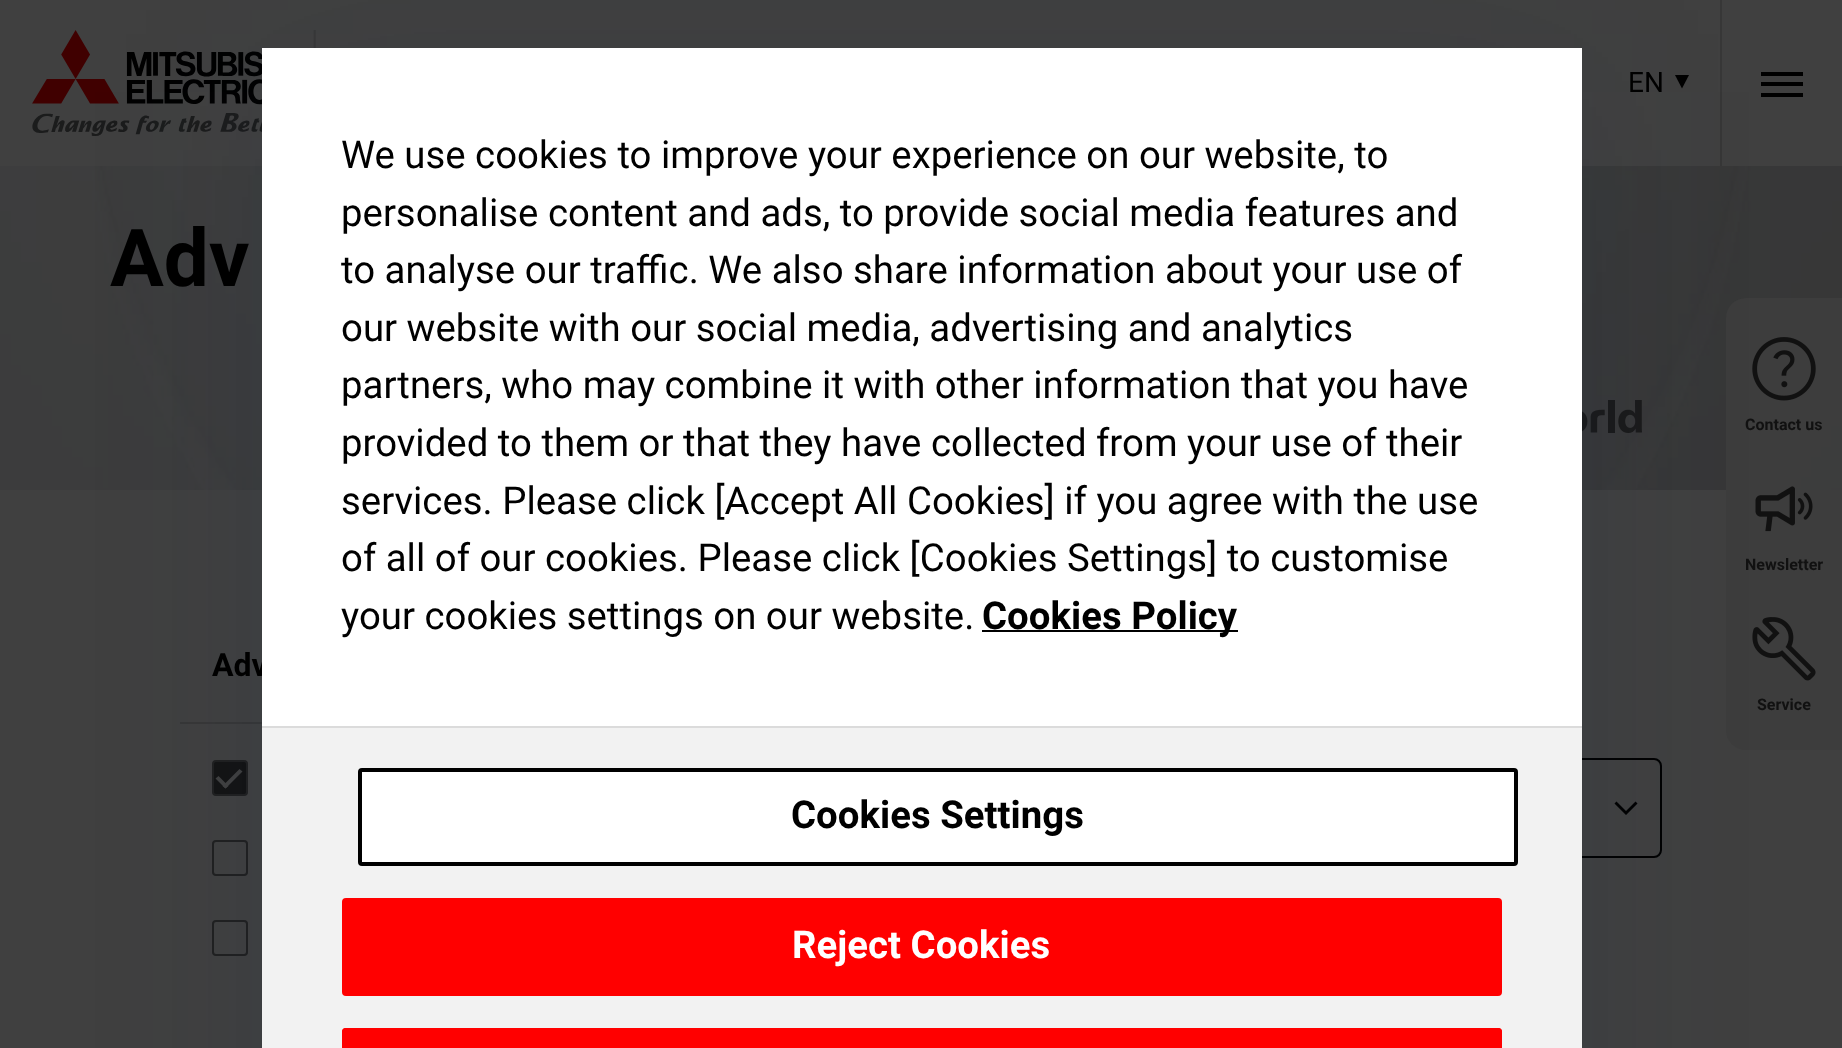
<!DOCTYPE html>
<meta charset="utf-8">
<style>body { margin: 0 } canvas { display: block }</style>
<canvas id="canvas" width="1842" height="1048"></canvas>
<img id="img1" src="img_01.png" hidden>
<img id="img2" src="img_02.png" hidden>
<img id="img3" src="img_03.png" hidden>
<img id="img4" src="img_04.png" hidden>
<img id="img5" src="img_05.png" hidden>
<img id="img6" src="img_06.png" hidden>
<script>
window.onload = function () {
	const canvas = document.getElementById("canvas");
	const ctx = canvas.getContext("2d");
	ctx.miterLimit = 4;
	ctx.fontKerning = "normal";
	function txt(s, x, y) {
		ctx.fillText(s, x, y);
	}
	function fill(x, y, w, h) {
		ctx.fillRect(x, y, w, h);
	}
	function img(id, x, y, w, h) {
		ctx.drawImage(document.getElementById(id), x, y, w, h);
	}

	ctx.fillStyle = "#404040";
	fill(0, 0, 1842, 1048);
	img("img1", 32, 30, 284, 106);
	ctx.fillStyle = "#000000";
	ctx.beginPath();
	ctx.moveTo(1682, 88.5);
	ctx.lineTo(1675, 75);
	ctx.lineTo(1689, 75);
	ctx.closePath();
	ctx.fill();
	ctx.fillStyle = "#373737";
	fill(1720, 0, 2, 166);
	ctx.fillStyle = "#000000";
	ctx.beginPath();
	ctx.moveTo(1761, 86);
	ctx.lineTo(1761, 82);
	ctx.lineTo(1803, 82);
	ctx.lineTo(1803, 86);
	ctx.closePath();
	ctx.moveTo(1761, 97);
	ctx.lineTo(1761, 93);
	ctx.lineTo(1803, 93);
	ctx.lineTo(1803, 97);
	ctx.closePath();
	ctx.moveTo(1761, 76);
	ctx.lineTo(1761, 72);
	ctx.lineTo(1803, 72);
	ctx.lineTo(1803, 76);
	ctx.closePath();
	ctx.fill();
	img("img2", 0, 166, 1842, 324);
	img("img3", 1582, 400, 60, 33);
	ctx.fillStyle = "#373737";
	fill(180, 722, 82, 2);
	ctx.fillStyle = "#131313";
	ctx.beginPath();
	ctx.roundRect(213, 761, 34, 34, 3);
	ctx.fill();
	ctx.strokeStyle = "#202020";
	ctx.lineWidth = 2;
	ctx.stroke();
	ctx.fillStyle = "#404040";
	ctx.beginPath();
	ctx.moveTo(239.5, 769);
	ctx.lineTo(242.5, 771.5);
	ctx.lineTo(225.5, 788.5);
	ctx.lineTo(222.5, 786);
	ctx.closePath();
	ctx.fill();
	ctx.beginPath();
	ctx.moveTo(218.5, 776);
	ctx.lineTo(228.5, 786);
	ctx.lineTo(225.5, 788.5);
	ctx.lineTo(215.5, 778.5);
	ctx.closePath();
	ctx.fill();
	ctx.beginPath();
	ctx.roundRect(213, 841, 34, 34, 3);
	ctx.stroke();
	ctx.beginPath();
	ctx.roundRect(213, 921, 34, 34, 3);
	ctx.stroke();
	ctx.beginPath();
	ctx.roundRect(1283, 759, 378, 98, 7);
	ctx.strokeStyle = "#000000";
	ctx.stroke();
	ctx.fillStyle = "#000000";
	ctx.beginPath();
	ctx.moveTo(1616.5, 801.5);
	ctx.lineTo(1614.5, 803.5);
	ctx.lineTo(1626, 815);
	ctx.lineTo(1637.5, 803.5);
	ctx.lineTo(1635.5, 801.5);
	ctx.lineTo(1626, 811);
	ctx.closePath();
	ctx.fill();
	ctx.fillStyle = "rgba(61, 61, 61, 0.95)";
	ctx.beginPath();
	ctx.roundRect(1726, 298, 116, 452, [20, 0, 0, 20]);
	ctx.fill();
	img("img4", 1752, 337, 64, 64);
	img("img5", 1755, 486, 58, 46);
	img("img6", 1752, 617, 64, 64);
	ctx.fillStyle = "rgba(24, 39, 75, 0.14)";
	ctx.filter = "blur(88px)";
	ctx.beginPath();
	ctx.rect(270, 92, 1304, 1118);
	ctx.fill();
	ctx.filter = "none";
	ctx.fillStyle = "#F2F2F2";
	fill(262, 728, 1320, 320);
	ctx.fillStyle = "#DBDBDB";
	fill(262, 726, 1320, 2);
	ctx.fillStyle = "#FFFFFF";
	ctx.beginPath();
	ctx.roundRect(360, 770, 1156, 94, 2);
	ctx.fill();
	ctx.lineWidth = 4;
	ctx.stroke();
	ctx.fillStyle = "#FF0000";
	ctx.beginPath();
	ctx.roundRect(344, 900, 1156, 94, 2);
	ctx.fill();
	ctx.strokeStyle = "#FF0000";
	ctx.stroke();
	ctx.beginPath();
	ctx.roundRect(342, 1028, 1160, 20, [4, 4, 0, 0]);
	ctx.fill();
	ctx.beginPath();
	ctx.roundRect(344, 1030, 1156, 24, 2);
	ctx.stroke();
	ctx.font = "28px Roboto";
	ctx.fillStyle = "#000000";
	txt("EN", 1628, 92);
	ctx.font = "bold 80px Roboto";
	txt("Adv", 110, 286);
	ctx.font = "bold 32px Roboto";
	txt("Adv", 212, 676);
	ctx.font = "bold 16px Roboto";
	ctx.fillStyle = "#111111";
	txt("Contact us", 1745, 430);
	txt("Newsletter", 1745, 570);
	txt("Service", 1757, 710);
	ctx.fillStyle = "#FFFFFF";
	fill(262, 48, 1320, 678);
	ctx.font = "38.4px Roboto";
	ctx.fillStyle = "#000000";
	txt("We use cookies to improve your experience on our website, to", 341, 168);
	txt("personalise content and ads, to provide social media features and", 341, 226);
	txt("to analyse our traffic. We also share information about your use of", 341, 283);
	txt("our website with our social media, advertising and analytics", 341, 341);
	txt("partners, who may combine it with other information that you have", 341, 398);
	txt("provided to them or that they have collected from your use of their", 341, 456);
	txt("services. Please click [Accept All Cookies] if you agree with the use", 341, 514);
	txt("of all of our cookies. Please click [Cookies Settings] to customise", 341, 571);
	txt("your cookies settings on our website.", 341, 629);
	fill(982, 630, 256, 2);
	ctx.font = "bold 38.4px Roboto";
	txt("Cookies Policy", 982, 629);
	txt("Cookies Settings", 791, 828);
	ctx.fillStyle = "#FFFFFF";
	txt("Reject Cookies", 792, 958);
};
</script>
